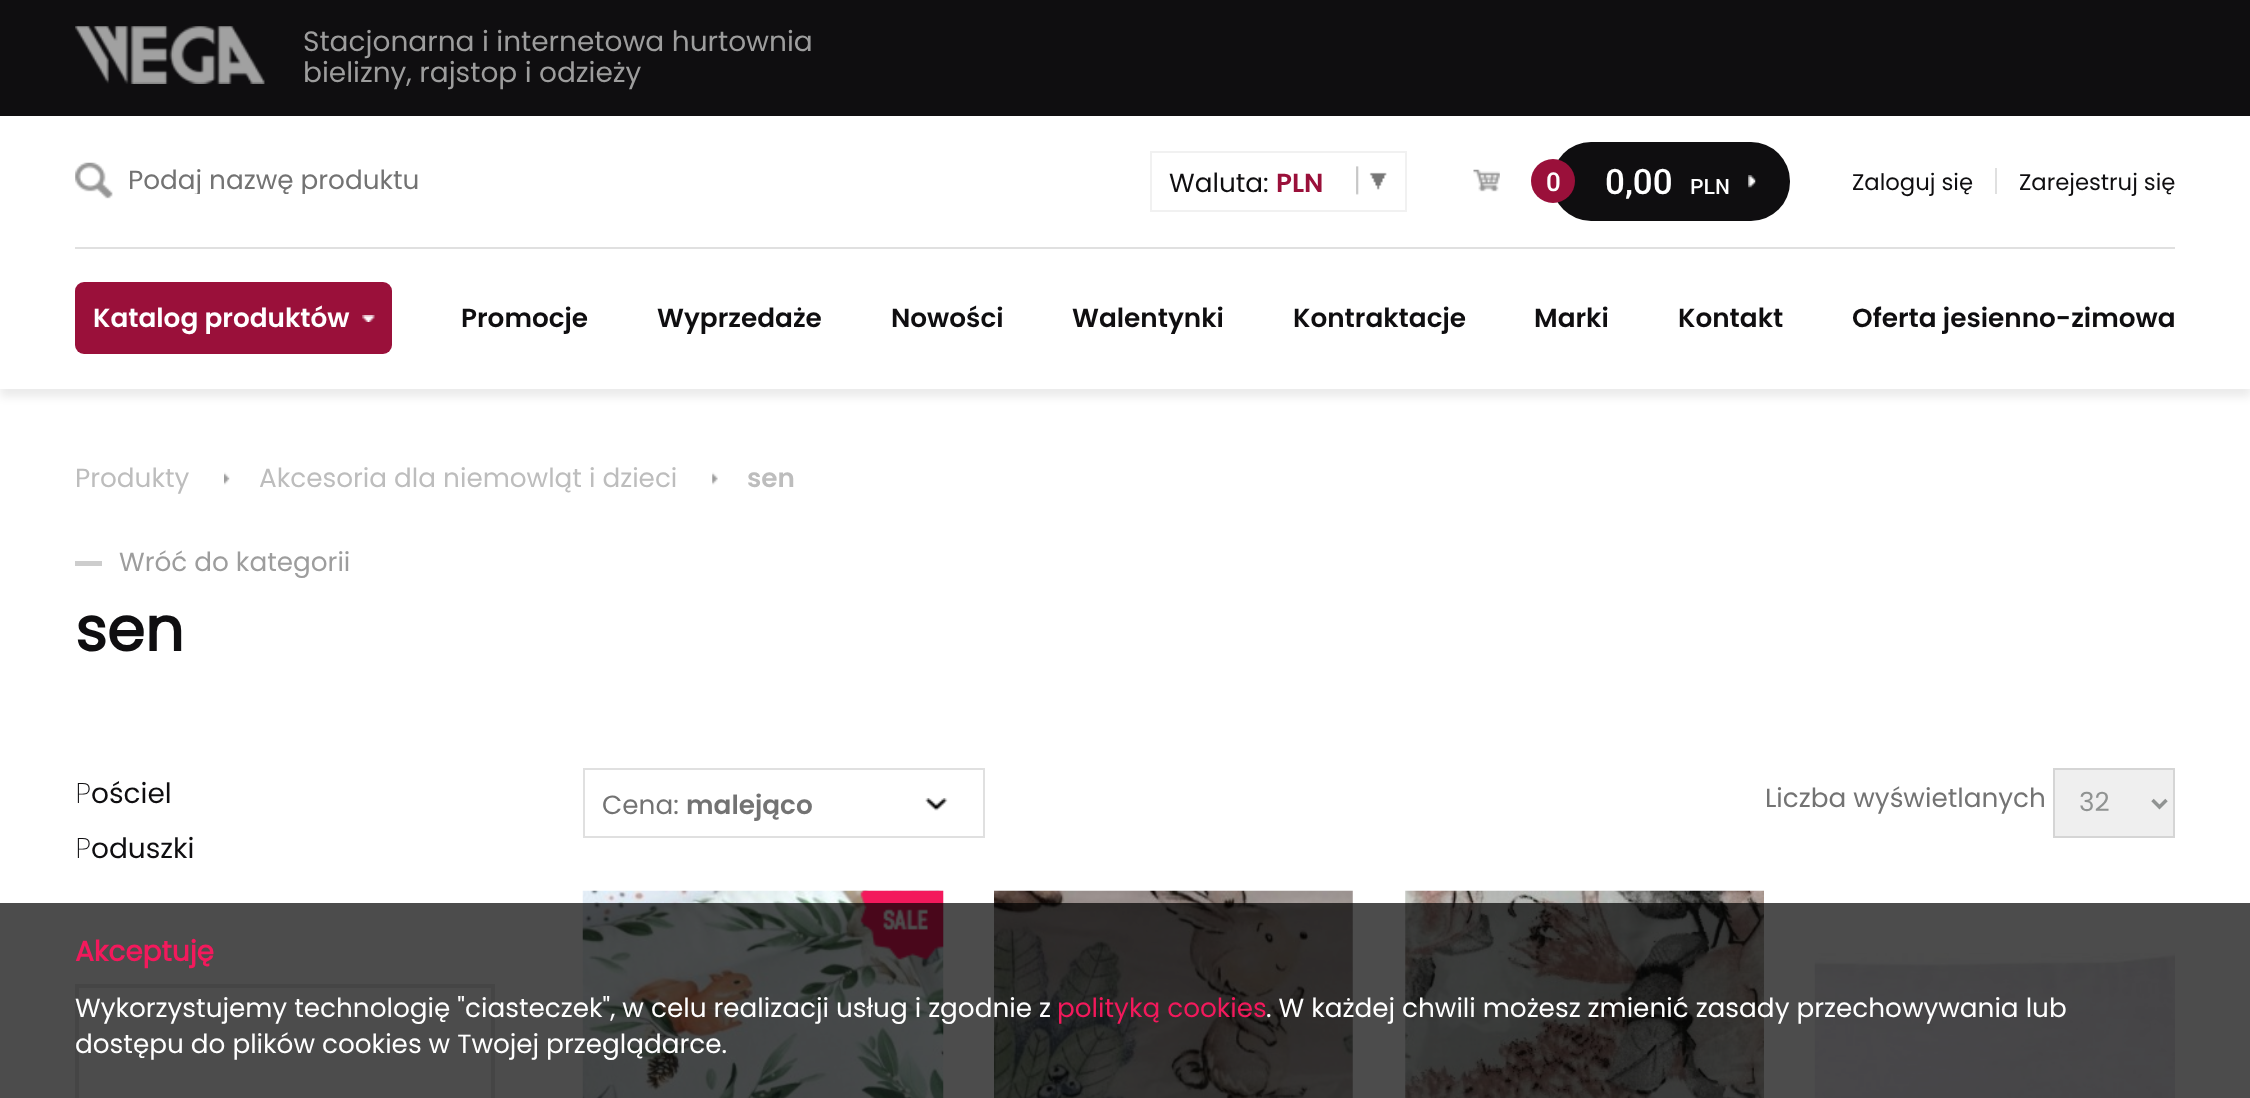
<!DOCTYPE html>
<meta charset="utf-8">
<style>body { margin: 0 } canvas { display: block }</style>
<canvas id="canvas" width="2250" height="1098"></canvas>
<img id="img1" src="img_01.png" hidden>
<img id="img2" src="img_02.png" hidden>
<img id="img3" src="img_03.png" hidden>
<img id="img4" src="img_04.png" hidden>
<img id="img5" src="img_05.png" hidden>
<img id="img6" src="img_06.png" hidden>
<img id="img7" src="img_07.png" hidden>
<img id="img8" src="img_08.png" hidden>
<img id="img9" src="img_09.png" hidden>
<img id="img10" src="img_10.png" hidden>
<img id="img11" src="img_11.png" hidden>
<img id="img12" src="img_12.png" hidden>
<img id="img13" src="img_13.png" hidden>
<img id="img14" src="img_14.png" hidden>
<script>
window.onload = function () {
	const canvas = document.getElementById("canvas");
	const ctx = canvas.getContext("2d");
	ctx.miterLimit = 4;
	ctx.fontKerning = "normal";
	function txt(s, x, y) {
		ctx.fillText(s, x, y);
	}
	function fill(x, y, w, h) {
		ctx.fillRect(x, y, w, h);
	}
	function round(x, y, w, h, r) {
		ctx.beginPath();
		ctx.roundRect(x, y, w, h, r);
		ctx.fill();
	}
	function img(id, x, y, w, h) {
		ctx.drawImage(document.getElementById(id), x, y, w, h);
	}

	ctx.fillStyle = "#FFFFFF";
	fill(0, 0, 2250, 1098);
	ctx.save();
	ctx.beginPath();
	ctx.moveTo(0, 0);
	ctx.lineTo(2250, 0);
	ctx.lineTo(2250, 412);
	ctx.lineTo(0, 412);
	ctx.closePath();
	ctx.moveTo(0, 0);
	ctx.lineTo(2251, 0);
	ctx.lineTo(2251, 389);
	ctx.lineTo(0, 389);
	ctx.closePath();
	ctx.clip("evenodd");
	ctx.fillStyle = "rgba(0, 0, 0, 0.08)";
	ctx.filter = "blur(4.5px)";
	ctx.beginPath();
	ctx.rect(0, 9, 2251, 388);
	ctx.fill();
	ctx.filter = "none";
	ctx.restore();
	ctx.fillStyle = "#0F0E10";
	fill(0, 0, 2250, 116);
	img("img1", 75, 26, 190, 58);
	ctx.fillStyle = "#E0E0E0";
	fill(75, 247, 2100, 2);
	img("img2", 75, 162, 38, 37);
	img("img3", 1356, 166, 31, 29);
	ctx.strokeStyle = "#F1F1F1";
	ctx.lineWidth = 2;
	ctx.strokeRect(1151, 152, 255, 59);
	img("img4", 1473, 169, 27, 23);
	ctx.fillStyle = "#0F0E10";
	round(1552, 142, 238, 79, 39);
	ctx.fillStyle = "#9A103A";
	ctx.beginPath();
	ctx.arc(1553, 181, 22, 0, Math.PI * 2);
	ctx.fill();
	img("img5", 1748, 175, 8, 13);
	ctx.fillStyle = "#E0E0E0";
	fill(1995, 168, 2, 26);
	ctx.fillStyle = "#9A103A";
	round(75, 282, 317, 72, 9);
	img("img6", 362, 315, 13, 7);
	img("img7", 224, 472, 6, 13);
	img("img8", 712, 472, 6, 13);
	ctx.fillStyle = "#CDCDCD";
	fill(75, 561, 27, 5);
	ctx.strokeStyle = "#E7E6E7";
	ctx.lineWidth = 4;
	ctx.strokeRect(77, 986, 416, 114);
	ctx.strokeStyle = "#E0E0E0";
	ctx.lineWidth = 2;
	ctx.strokeRect(584, 769, 400, 68);
	img("img9", 925, 798, 23, 13);
	ctx.fillStyle = "#EFEFEF";
	ctx.beginPath();
	ctx.rect(2054, 769, 120, 68);
	ctx.fill();
	ctx.strokeStyle = "#D5D5D5";
	ctx.stroke();
	ctx.beginPath();
	ctx.moveTo(2152.5, 800);
	ctx.lineTo(2159.5, 807);
	ctx.lineTo(2166.5, 800);
	ctx.strokeStyle = "#909392";
	ctx.lineWidth = 3.5;
	ctx.stroke();
	img("img10", 582, 890, 362, 208);
	img("img11", 860, 890, 84, 70);
	img("img12", 994, 890, 359, 208);
	img("img13", 1405, 890, 359, 208);
	img("img14", 1814, 953, 361, 145);
	ctx.fillStyle = "rgba(0, 0, 0, 0.7)";
	fill(0, 903, 2250, 195);
	ctx.font = "28px Poppins";
	ctx.fillStyle = "#9D9D9D";
	txt("Stacjonarna i internetowa hurtownia", 303, 51);
	txt("bielizny, rajstop i odzieży", 303, 82);
	ctx.save();
	ctx.beginPath();
	ctx.rect(128, 168, 1004, 26);
	ctx.clip();
	ctx.font = "26.3px Poppins";
	ctx.fillStyle = "#737373";
	txt("Podaj nazwę produktu", 128, 189);
	ctx.restore();
	ctx.font = "26.3px Poppins";
	ctx.fillStyle = "#0F0E10";
	txt("Waluta:", 1169, 192);
	ctx.font = "600 26.3px Poppins";
	ctx.fillStyle = "#9A103A";
	txt("PLN", 1276, 192);
	ctx.font = "500 26px Roboto";
	ctx.fillStyle = "#FFFFFF";
	txt("0", 1546, 191);
	ctx.font = "500 35px Roboto";
	txt("0,00", 1605, 194);
	ctx.font = "500 21px Roboto";
	txt("PLN", 1690, 194);
	ctx.font = "22.75px Poppins";
	ctx.fillStyle = "#0F0E10";
	txt("Zaloguj się", 1852, 190);
	txt("Zarejestruj się", 2019, 190);
	ctx.font = "600 26.3px Poppins";
	ctx.fillStyle = "#FFFFFF";
	txt("Katalog produktów", 93, 327);
	ctx.fillStyle = "#0F0E10";
	txt("Promocje", 461, 327);
	txt("Wyprzedaże", 657, 327);
	txt("Nowości", 891, 327);
	txt("Walentynki", 1072, 327);
	txt("Kontraktacje", 1293, 327);
	txt("Marki", 1534, 327);
	txt("Kontakt", 1678, 327);
	txt("Oferta jesienno-zimowa", 1852, 327);
	ctx.font = "26.3px Poppins";
	ctx.fillStyle = "#BDBDBD";
	txt("Produkty", 75, 487);
	txt("Akcesoria dla niemowląt i dzieci", 259, 487);
	ctx.font = "600 26.3px Poppins";
	txt("sen", 747, 487);
	ctx.font = "26.3px Poppins";
	ctx.fillStyle = "#9D9D9D";
	txt("Wróć do kategorii", 119, 571);
	ctx.font = "bold 61px Poppins";
	ctx.fillStyle = "#0F0E10";
	txt("sen", 75, 651);
	ctx.font = "200 28px Noto Sans";
	txt("P", 75, 803);
	ctx.font = "28px Poppins";
	txt("ościel", 91, 803);
	ctx.font = "200 28px Noto Sans";
	txt("P", 75, 858);
	ctx.font = "28px Poppins";
	txt("oduszki", 91, 858);
	ctx.font = "26.3px Poppins";
	ctx.fillStyle = "#737373";
	txt("Cena:", 602, 814);
	ctx.font = "600 26.3px Poppins";
	txt("malejąco", 686, 814);
	ctx.font = "26.3px Poppins";
	txt("Liczba wyświetlanych", 1765, 807);
	ctx.fillStyle = "#909392";
	txt("32", 2079, 811);
	ctx.font = "bold 28px Poppins";
	ctx.fillStyle = "#F3195C";
	txt("Akceptuję", 75, 961);
	ctx.font = "26.3px Poppins";
	ctx.fillStyle = "#FFFFFF";
	txt("Wykorzystujemy technologię \"ciasteczek\", w celu realizacji usług i zgodnie z", 75, 1017);
	ctx.fillStyle = "#F3195C";
	txt("polityką cookies", 1057, 1017);
	ctx.fillStyle = "#FFFFFF";
	txt(". W każdej chwili możesz zmienić zasady przechowywania lub", 1266, 1017);
	txt("dostępu do plików cookies w Twojej przeglądarce.", 75, 1053);
};
</script>
